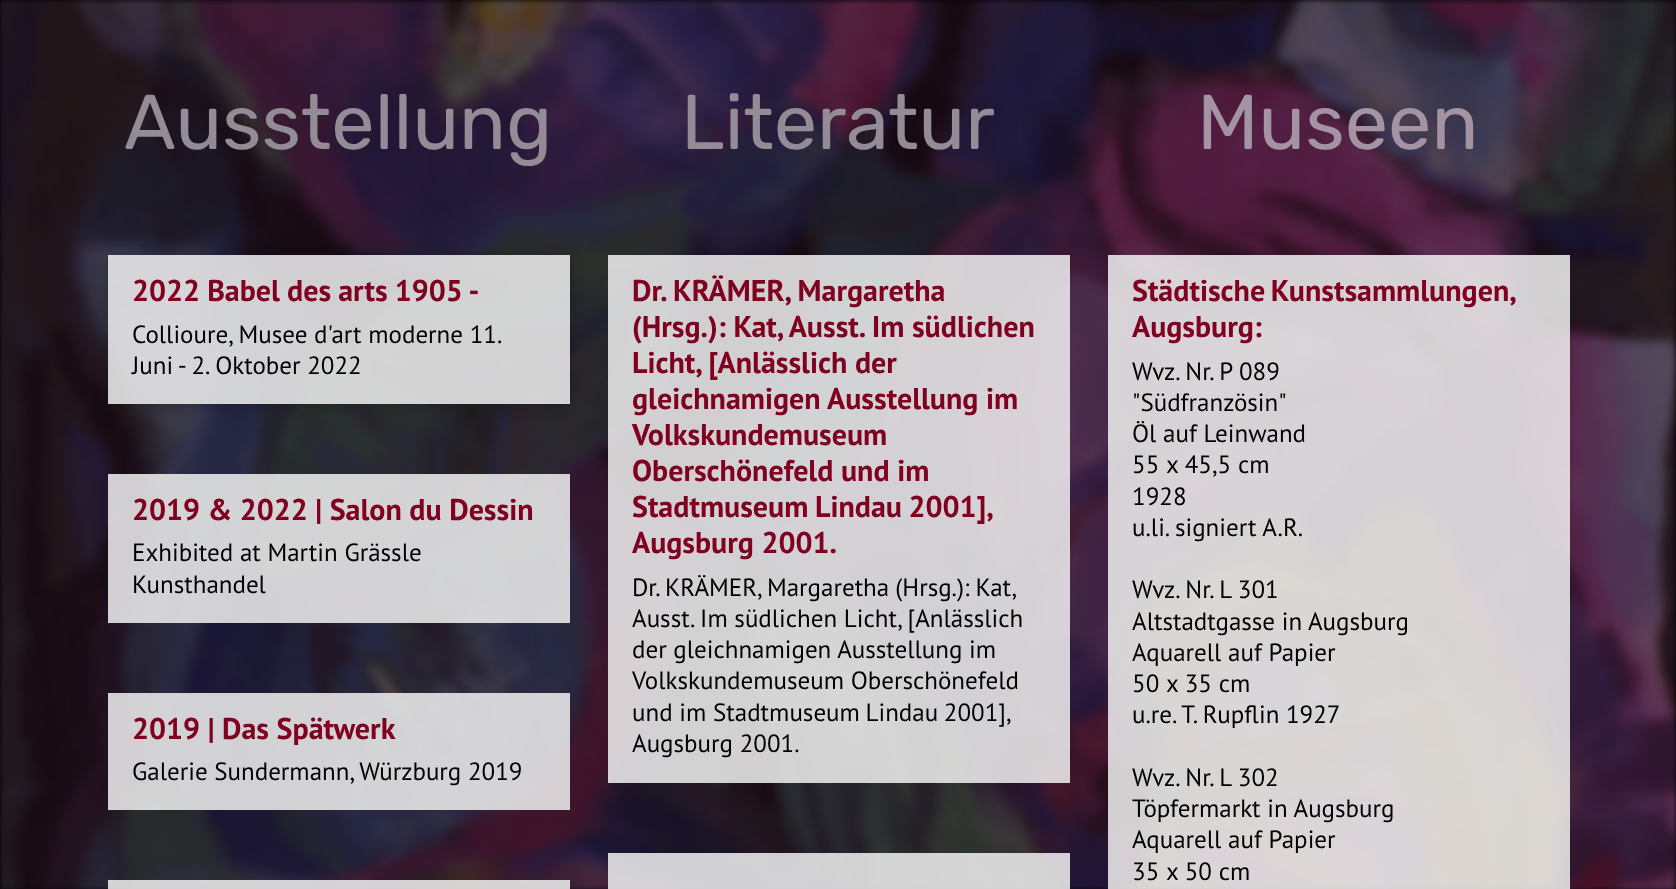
<!DOCTYPE html>
<meta charset="utf-8">
<style>body { margin: 0 } canvas { display: block }</style>
<canvas id="canvas" width="1676" height="889"></canvas>
<img id="img1" src="img_01.png" hidden>
<script>
window.onload = function () {
	const canvas = document.getElementById("canvas");
	const ctx = canvas.getContext("2d");
	ctx.miterLimit = 4;
	ctx.fontKerning = "normal";
	function txt(s, x, y) {
		ctx.fillText(s, x, y);
	}
	function fill(x, y, w, h) {
		ctx.fillRect(x, y, w, h);
	}
	function img(id, x, y, w, h) {
		ctx.drawImage(document.getElementById(id), x, y, w, h);
	}

	ctx.fillStyle = "#000000";
	fill(0, 0, 1676, 889);
	img("img1", 0, 0, 1676, 889);
	ctx.save();
	ctx.beginPath();
	ctx.moveTo(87, 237);
	ctx.lineTo(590, 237);
	ctx.lineTo(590, 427);
	ctx.lineTo(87, 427);
	ctx.closePath();
	ctx.moveTo(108, 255);
	ctx.lineTo(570, 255);
	ctx.lineTo(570, 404);
	ctx.lineTo(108, 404);
	ctx.closePath();
	ctx.clip("evenodd");
	ctx.fillStyle = "rgba(0, 0, 0, 0.2)";
	ctx.filter = "blur(6px)";
	ctx.beginPath();
	ctx.rect(106, 256, 465, 152);
	ctx.fill();
	ctx.filter = "none";
	ctx.restore();
	ctx.fillStyle = "rgba(242, 242, 242, 0.85)";
	fill(108, 255, 462, 149);
	fill(108, 474, 462, 149);
	fill(108, 693, 462, 117);
	fill(108, 880, 462, 9);
	fill(608, 255, 462, 528);
	fill(608, 853, 462, 36);
	fill(1108, 255, 462, 634);
	ctx.font = "77.5px Rubik";
	ctx.fillStyle = "#938C97";
	txt("Ausstellung", 124, 149);
	ctx.wordSpacing = "-0.5px";
	ctx.font = "bold 30px PT Sans";
	ctx.fillStyle = "#800020";
	txt("2022 Babel des arts 1905 -", 132, 301);
	ctx.wordSpacing = "0px";
	ctx.font = "25px PT Sans";
	ctx.fillStyle = "#000000";
	txt("Collioure, Musee d'art moderne 11.", 132, 343);
	txt("Juni - 2. Oktober 2022", 132, 374);
	ctx.font = "bold 30px PT Sans";
	ctx.fillStyle = "#800020";
	txt("2019 & 2022 | Salon du Dessin", 132, 520);
	ctx.font = "25px PT Sans";
	ctx.fillStyle = "#000000";
	txt("Exhibited at Martin Grässle", 132, 561);
	txt("Kunsthandel", 132, 593);
	ctx.font = "bold 30px PT Sans";
	ctx.fillStyle = "#800020";
	txt("2019 | Das Spätwerk", 132, 739);
	ctx.font = "25px PT Sans";
	ctx.fillStyle = "#000000";
	txt("Galerie Sundermann, Würzburg 2019", 132, 780);
	ctx.font = "77.5px Rubik";
	ctx.fillStyle = "#938C97";
	txt("Literatur", 681, 149);
	ctx.font = "bold 30px PT Sans";
	ctx.fillStyle = "#800020";
	txt("Dr. KRÄMER, Margaretha", 632, 301);
	txt("(Hrsg.): Kat, Ausst. Im südlichen", 632, 337);
	txt("Licht, [Anlässlich der", 632, 373);
	txt("gleichnamigen Ausstellung im", 632, 409);
	txt("Volkskundemuseum", 632, 445);
	txt("Oberschönefeld und im", 632, 481);
	ctx.wordSpacing = "-1px";
	txt("Stadtmuseum Lindau 2001],", 632, 517);
	ctx.wordSpacing = "0px";
	txt("Augsburg 2001.", 632, 553);
	ctx.wordSpacing = "-0.5px";
	ctx.font = "25px PT Sans";
	ctx.fillStyle = "#000000";
	txt("Dr. KRÄMER, Margaretha (Hrsg.): Kat,", 632, 596);
	ctx.wordSpacing = "0px";
	txt("Ausst. Im südlichen Licht, [Anlässlich", 632, 627);
	txt("der gleichnamigen Ausstellung im", 632, 658);
	txt("Volkskundemuseum Oberschönefeld", 632, 689);
	txt("und im", 632, 721);
	ctx.wordSpacing = "-1px";
	txt("Stadtmuseum Lindau 2001],", 713, 721);
	ctx.wordSpacing = "0px";
	txt("Augsburg 2001.", 632, 752);
	ctx.font = "77.5px Rubik";
	ctx.fillStyle = "#A493A2";
	txt("Museen", 1197, 149);
	ctx.wordSpacing = "-2px";
	ctx.font = "bold 30px PT Sans";
	ctx.fillStyle = "#800020";
	txt("Städtische Kunstsammlungen,", 1132, 301);
	ctx.wordSpacing = "0px";
	txt("Augsburg:", 1132, 337);
	ctx.font = "25px PT Sans";
	ctx.fillStyle = "#000000";
	txt("Wvz. Nr. P 089", 1132, 380);
	txt("\"Südfranzösin\"", 1132, 411);
	txt("Öl auf Leinwand", 1132, 442);
	txt("55 x 45,5 cm", 1132, 473);
	txt("1928", 1132, 505);
	txt("u.li. signiert A.R.", 1132, 536);
	txt("Wvz. Nr. L 301", 1132, 598);
	txt("Altstadtgasse in Augsburg", 1132, 630);
	txt("Aquarell auf Papier", 1132, 661);
	txt("50 x 35 cm", 1132, 692);
	txt("u.re. T. Rupflin 1927", 1132, 723);
	txt("Wvz. Nr. L 302", 1132, 786);
	txt("Töpfermarkt in Augsburg", 1132, 817);
	txt("Aquarell auf Papier", 1132, 848);
	txt("35 x 50 cm", 1132, 880);
};
</script>
